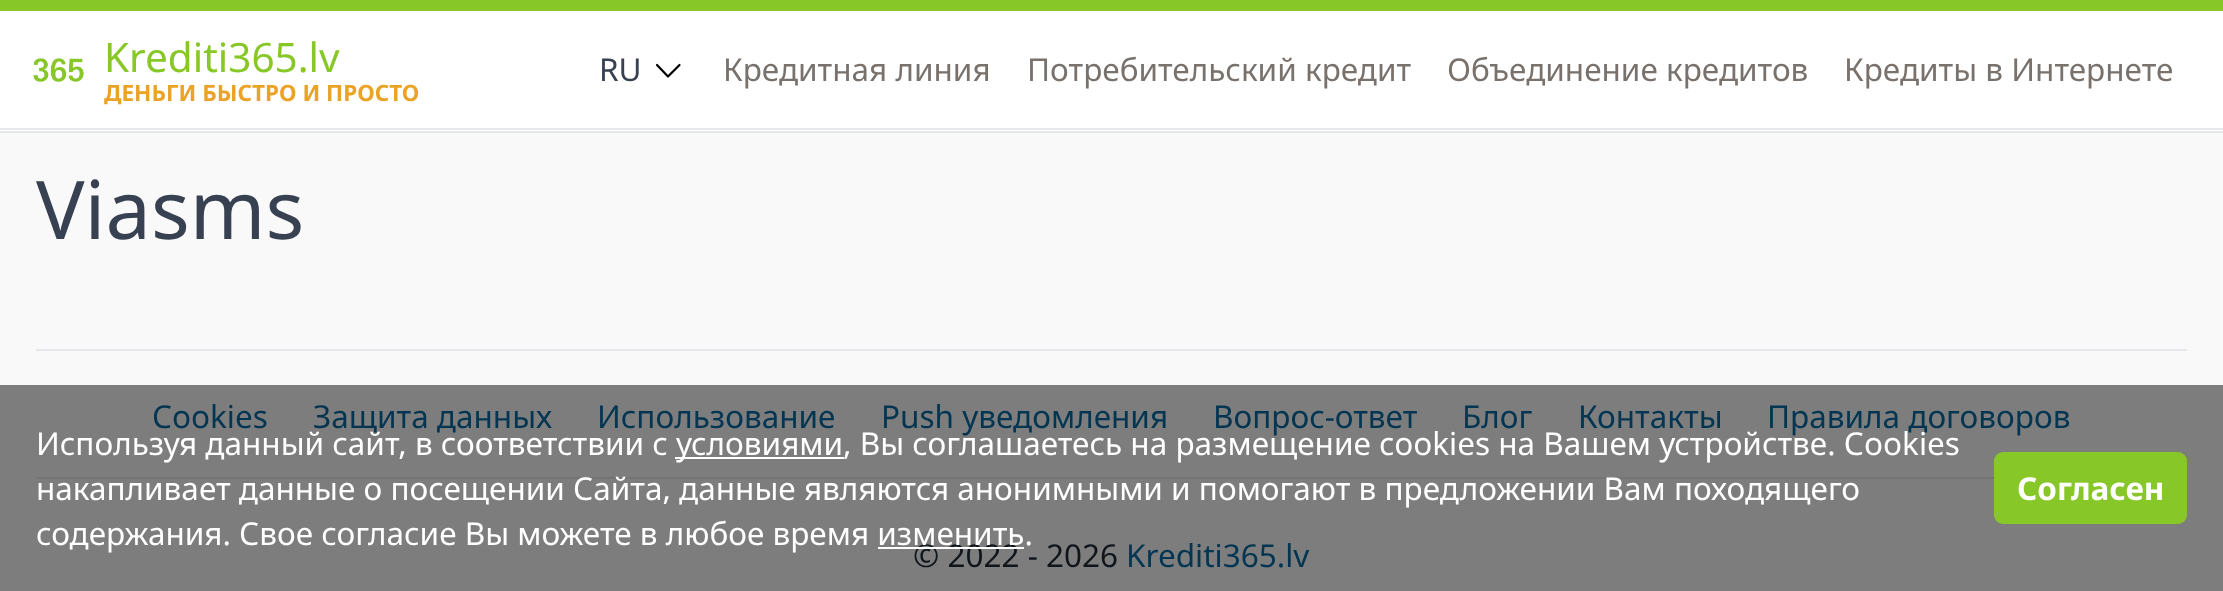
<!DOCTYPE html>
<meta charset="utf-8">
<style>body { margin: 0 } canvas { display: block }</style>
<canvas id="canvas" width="2223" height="591"></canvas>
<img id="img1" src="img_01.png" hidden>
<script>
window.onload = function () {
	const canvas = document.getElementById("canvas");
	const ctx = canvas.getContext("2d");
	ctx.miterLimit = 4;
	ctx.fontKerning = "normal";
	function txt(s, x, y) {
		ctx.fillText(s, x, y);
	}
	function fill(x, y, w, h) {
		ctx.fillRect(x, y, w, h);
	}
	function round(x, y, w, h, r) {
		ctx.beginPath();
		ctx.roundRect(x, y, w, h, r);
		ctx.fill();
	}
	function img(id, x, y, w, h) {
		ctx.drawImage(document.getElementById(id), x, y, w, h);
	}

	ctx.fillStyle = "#F9F9F9";
	fill(0, 0, 2223, 591);
	ctx.fillStyle = "#7D7D7D";
	fill(0, 385, 2223, 206);
	ctx.fillStyle = "#FFFFFF";
	fill(0, 11, 2223, 120);
	ctx.fillStyle = "#E5E7EB";
	fill(0, 131, 2223, 2);
	ctx.fillStyle = "#87C727";
	fill(0, 0, 2223, 11);
	ctx.fillStyle = "#E5E7EB";
	fill(0, 128, 2223, 2);
	img("img1", 33, 58, 51, 24);
	ctx.beginPath();
	ctx.moveTo(679.5, 65);
	ctx.lineTo(668, 76.5);
	ctx.lineTo(657, 65);
	ctx.strokeStyle = "#000000";
	ctx.lineWidth = 2.2;
	ctx.lineCap = "round";
	ctx.lineJoin = "round";
	ctx.stroke();
	fill(36, 349, 2151, 2);
	ctx.fillStyle = "#737476";
	fill(36, 477, 1958, 2);
	ctx.fillStyle = "#FFFFFF";
	fill(675, 457, 169, 2);
	ctx.fillStyle = "#87C727";
	round(1994, 452, 193, 72, 9);
	ctx.font = "40.5px Noto Sans";
	txt("Krediti365.lv", 104, 72);
	ctx.font = "bold 22.5px Noto Sans";
	ctx.fillStyle = "#EAA327";
	txt("ДЕНЬГИ БЫСТРО И ПРОСТО", 104, 101);
	ctx.font = "31.5px Noto Sans";
	ctx.fillStyle = "#374151";
	txt("RU", 599, 81);
	ctx.fillStyle = "#78716C";
	txt("Кредитная линия", 723, 81);
	txt("Потребительский кредит", 1027, 81);
	txt("Объединение кредитов", 1447, 81);
	txt("Кредиты в Интернете", 1844, 81);
	ctx.font = "81px Noto Sans";
	ctx.fillStyle = "#374151";
	txt("Viasms", 36, 239);
	ctx.font = "31.5px Noto Sans";
	ctx.fillStyle = "#023551";
	txt("Cookies", 152, 428);
	txt("Защита данных", 313, 428);
	txt("Использование", 597, 428);
	txt("Push уведомления", 881, 428);
	txt("Вопрос-ответ", 1213, 428);
	txt("Блог", 1462, 428);
	txt("Контакты", 1578, 428);
	txt("Правила договоров", 1767, 428);
	ctx.fillStyle = "#10151C";
	txt("© 2022 - 2026", 913, 567);
	ctx.fillStyle = "#023551";
	txt("Krediti365.lv", 1126, 567);
	ctx.fillStyle = "#FFFFFF";
	txt("Используя данный сайт, в соответствии с", 36, 455);
	txt("условиями, Вы соглашаетесь на размещение cookies на Вашем устройстве. Сookies", 676, 455);
	txt("накапливает данные о посещении Сайта, данные являются анонимными и помогают в предложении Вам походящего", 36, 500);
	txt("содержания. Свое согласие Вы можете в любое время изменить.", 36, 545);
	fill(878, 547, 146, 2);
	ctx.font = "bold 31.5px Noto Sans";
	txt("Согласен", 2017, 500);
};
</script>
